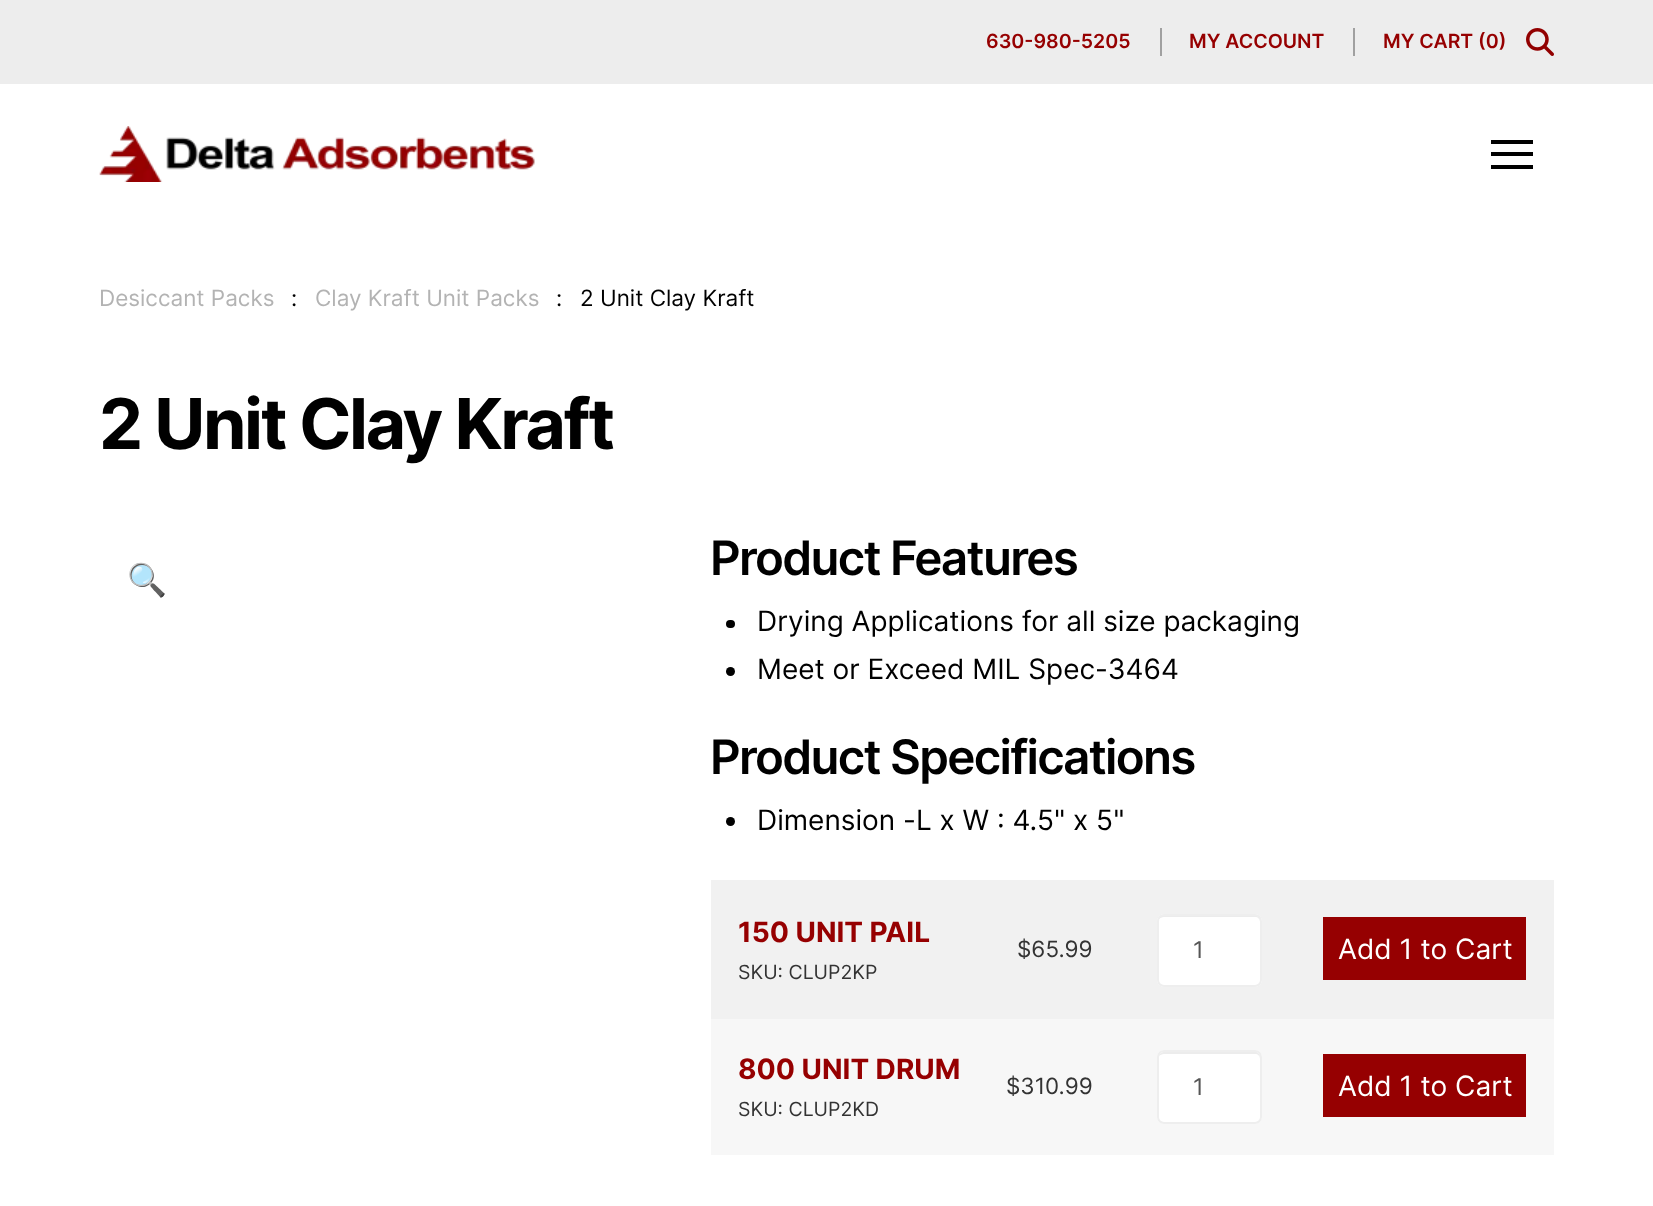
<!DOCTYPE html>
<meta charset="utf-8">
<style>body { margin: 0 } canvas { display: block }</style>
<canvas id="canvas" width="1653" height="1206"></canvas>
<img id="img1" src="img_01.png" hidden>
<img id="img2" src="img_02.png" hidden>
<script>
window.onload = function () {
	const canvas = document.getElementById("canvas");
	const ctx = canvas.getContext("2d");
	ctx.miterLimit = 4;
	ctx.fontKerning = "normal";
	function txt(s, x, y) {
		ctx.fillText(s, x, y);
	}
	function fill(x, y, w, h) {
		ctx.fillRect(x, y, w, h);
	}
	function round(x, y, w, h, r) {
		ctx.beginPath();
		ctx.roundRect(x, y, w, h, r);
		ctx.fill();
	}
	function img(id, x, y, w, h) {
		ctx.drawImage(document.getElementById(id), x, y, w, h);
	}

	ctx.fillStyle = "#FFFFFF";
	fill(0, 0, 1653, 1206);
	ctx.fillStyle = "#EDEDED";
	fill(0, 0, 1653, 84);
	ctx.fillStyle = "#A0A0A0";
	fill(1160, 28, 2, 28);
	fill(1353, 28, 2, 28);
	img("img1", 1526, 28, 28, 28);
	img("img2", 99, 126, 436, 56);
	ctx.fillStyle = "#000000";
	fill(1491, 140, 42, 4);
	fill(1491, 152, 42, 4);
	fill(1491, 165, 42, 4);
	round(726, 620, 9, 8, 4);
	ctx.beginPath();
	ctx.arc(730.5, 671.5, 4.5, 0, Math.PI * 2);
	ctx.fill();
	ctx.beginPath();
	ctx.arc(730.5, 821.5, 4.5, 0, Math.PI * 2);
	ctx.fill();
	ctx.fillStyle = "#F7F7F7";
	fill(711, 1019, 843, 136);
	ctx.fillStyle = "#F1F1F1";
	fill(711, 880, 843, 139);
	ctx.fillStyle = "#FFFFFF";
	round(1157, 914, 105, 73, 7);
	ctx.fillStyle = "#ECECEC";
	ctx.beginPath();
	ctx.moveTo(1164, 917);
	ctx.lineTo(1255, 917);
	ctx.bezierCurveTo(1258, 917, 1260, 919, 1260, 922);
	ctx.lineTo(1260, 920);
	ctx.bezierCurveTo(1260, 917, 1258, 915, 1255, 915);
	ctx.lineTo(1164, 915);
	ctx.bezierCurveTo(1162, 915, 1159, 917, 1159, 919);
	ctx.bezierCurveTo(1160, 918, 1162, 917, 1164, 917);
	ctx.closePath();
	ctx.fill();
	ctx.beginPath();
	ctx.roundRect(1158, 915, 103, 71, 6);
	ctx.strokeStyle = "#EEEEEE";
	ctx.lineWidth = 2;
	ctx.stroke();
	ctx.fillStyle = "#960001";
	fill(1323, 917, 203, 63);
	ctx.fillStyle = "#FFFFFF";
	round(1157, 1050, 105, 74, 7);
	ctx.fillStyle = "#ECECEC";
	ctx.beginPath();
	ctx.moveTo(1164, 1054);
	ctx.lineTo(1255, 1054);
	ctx.bezierCurveTo(1258, 1054, 1260, 1056, 1260, 1059);
	ctx.lineTo(1260, 1057);
	ctx.bezierCurveTo(1260, 1054, 1258, 1052, 1255, 1052);
	ctx.lineTo(1164, 1052);
	ctx.bezierCurveTo(1162, 1052, 1159, 1054, 1159, 1056);
	ctx.bezierCurveTo(1160, 1055, 1162, 1054, 1164, 1054);
	ctx.closePath();
	ctx.fill();
	ctx.beginPath();
	ctx.roundRect(1158, 1051, 103, 72, 6);
	ctx.stroke();
	ctx.fillStyle = "#960001";
	fill(1323, 1054, 203, 63);
	ctx.font = "600 19.5px Inter";
	txt("630-980-5205", 986, 48);
	txt("MY ACCOUNT", 1189, 48);
	txt("MY CART (0)", 1383, 48);
	ctx.font = "22.5px Inter";
	ctx.fillStyle = "#B3B3B3";
	txt("Desiccant Packs", 99, 306);
	ctx.fillStyle = "#000000";
	txt(":", 291, 306);
	ctx.fillStyle = "#B3B3B3";
	txt("Clay Kraft Unit Packs", 315, 306);
	ctx.fillStyle = "#000000";
	txt(":", 556, 306);
	txt("2 Unit Clay Kraft", 580, 306);
	ctx.letterSpacing = "-2.5px";
	ctx.font = "bold 70px Inter";
	txt("2 Unit Clay Kraft", 99, 449);
	ctx.letterSpacing = "0px";
	ctx.font = "32px Noto Color Emoji";
	ctx.fillStyle = "#960001";
	txt("🔍", 127, 591);
	ctx.letterSpacing = "-1.7px";
	ctx.font = "600 47.6px Inter";
	ctx.fillStyle = "#000000";
	txt("Product Features", 710, 575);
	ctx.letterSpacing = "0px";
	ctx.font = "28px Inter";
	txt("Drying Applications for all size packaging", 757, 631);
	txt("Meet or Exceed MIL Spec-3464", 757, 679);
	ctx.letterSpacing = "-1.7px";
	ctx.font = "600 47.6px Inter";
	txt("Product Specifications", 710, 774);
	ctx.letterSpacing = "0px";
	ctx.font = "28px Inter";
	txt("Dimension -L x W : 4.5\" x 5\"", 757, 830);
	ctx.font = "bold 28px Inter";
	ctx.fillStyle = "#960001";
	txt("150 UNIT PAIL", 738, 942);
	ctx.font = "19.5px Inter";
	ctx.fillStyle = "#333333";
	txt("SKU: CLUP2KP", 738, 979);
	ctx.font = "22.5px Inter";
	txt("$65.99", 1017, 957);
	ctx.font = "23px Inter";
	ctx.fillStyle = "#555555";
	txt("1", 1193, 958);
	ctx.font = "28px Inter";
	ctx.fillStyle = "#FFFFFF";
	txt("Add 1 to Cart", 1338, 959);
	ctx.font = "bold 28px Inter";
	ctx.fillStyle = "#960001";
	txt("800 UNIT DRUM", 738, 1079);
	ctx.font = "19.5px Inter";
	ctx.fillStyle = "#333333";
	txt("SKU: CLUP2KD", 738, 1116);
	ctx.font = "22.5px Inter";
	txt("$310.99", 1006, 1094);
	ctx.font = "23px Inter";
	ctx.fillStyle = "#555555";
	txt("1", 1193, 1095);
	ctx.font = "28px Inter";
	ctx.fillStyle = "#FFFFFF";
	txt("Add 1 to Cart", 1338, 1096);
};
</script>
